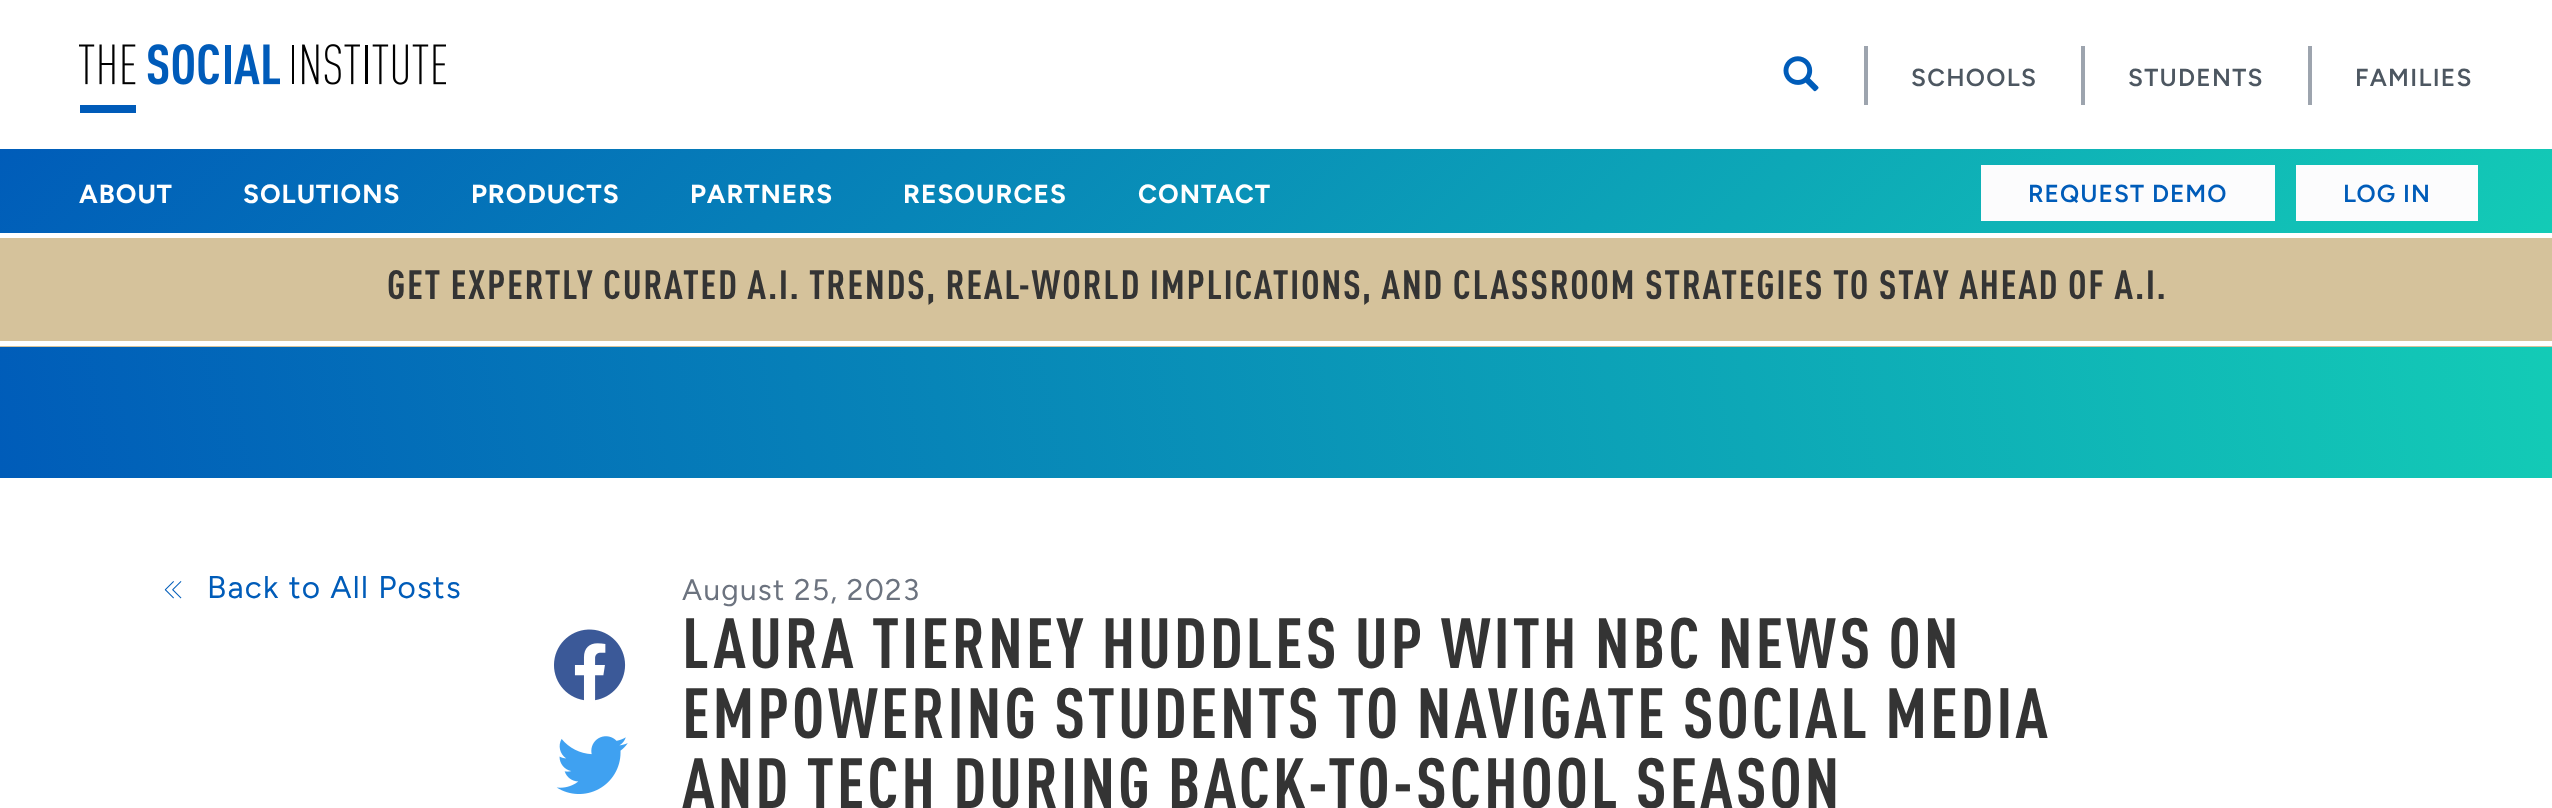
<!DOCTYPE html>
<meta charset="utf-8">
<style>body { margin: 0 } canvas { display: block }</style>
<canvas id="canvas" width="2552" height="808"></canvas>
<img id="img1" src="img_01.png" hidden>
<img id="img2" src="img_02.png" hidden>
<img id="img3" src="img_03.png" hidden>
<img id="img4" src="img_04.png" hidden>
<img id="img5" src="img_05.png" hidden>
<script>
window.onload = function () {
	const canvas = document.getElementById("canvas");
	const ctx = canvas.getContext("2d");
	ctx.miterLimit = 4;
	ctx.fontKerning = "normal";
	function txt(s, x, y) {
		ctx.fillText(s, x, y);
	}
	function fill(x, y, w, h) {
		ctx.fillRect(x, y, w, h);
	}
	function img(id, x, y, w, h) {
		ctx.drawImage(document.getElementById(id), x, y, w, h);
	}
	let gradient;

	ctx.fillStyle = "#FFFFFF";
	fill(0, 0, 2552, 808);
	img("img1", 79, 44, 367, 69);
	img("img2", 1783, 56, 36, 36);
	ctx.fillStyle = "#9DA4AE";
	fill(1864, 46, 4, 59);
	fill(2081, 46, 4, 59);
	fill(2308, 46, 4, 59);
	gradient = ctx.createLinearGradient(1936, 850, 617, -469);
	gradient.addColorStop(0, "#13CBB6");
	gradient.addColorStop(1, "#005CB9");
	ctx.fillStyle = gradient;
	fill(0, 149, 2552, 84);
	ctx.fillStyle = "#FCFCFD";
	fill(1981, 165, 294, 56);
	fill(2296, 165, 182, 56);
	ctx.fillStyle = "#D5C29B";
	fill(0, 238, 2552, 109);
	ctx.fillStyle = "#FFFFFF";
	fill(0, 341, 2552, 5);
	gradient = ctx.createLinearGradient(2526, 192, 27, 632);
	gradient.addColorStop(0, "#13CBB6");
	gradient.addColorStop(1, "#005CB9");
	ctx.fillStyle = gradient;
	fill(0, 347, 2552, 131);
	img("img3", 164, 581, 18, 18);
	img("img4", 554, 629, 72, 72);
	img("img5", 556, 736, 72, 58);
	ctx.letterSpacing = "1.25px";
	ctx.font = "600 24.5px Figtree";
	ctx.fillStyle = "#4D5761";
	txt("SCHOOLS", 1911, 86);
	txt("STUDENTS", 2128, 86);
	txt("FAMILIES", 2355, 86);
	ctx.letterSpacing = "1px";
	ctx.font = "bold 26.25px Figtree";
	ctx.fillStyle = "#FFFFFF";
	txt("ABOUT", 79, 203);
	txt("SOLUTIONS", 243, 203);
	txt("PRODUCTS", 471, 203);
	txt("PARTNERS", 690, 203);
	txt("RESOURCES", 903, 203);
	txt("CONTACT", 1138, 203);
	ctx.font = "600 24.5px Figtree";
	ctx.fillStyle = "#005CB9";
	txt("REQUEST DEMO", 2028, 202);
	txt("LOG IN", 2343, 202);
	ctx.letterSpacing = "1.61px";
	ctx.font = "bold 40.25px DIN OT";
	ctx.fillStyle = "#343434";
	txt("GET EXPERTLY CURATED A.I. TRENDS, REAL-WORLD IMPLICATIONS, AND CLASSROOM STRATEGIES TO STAY AHEAD OF A.I.", 387, 299);
	ctx.letterSpacing = "1.25px";
	ctx.font = "31.5px Figtree";
	ctx.fillStyle = "#005CB9";
	txt("Back to All Posts", 207, 598);
	ctx.font = "29.75px Figtree";
	ctx.fillStyle = "#6C737F";
	txt("August 25, 2023", 682, 600);
	ctx.letterSpacing = "2.8px";
	ctx.font = "bold 70px DIN OT";
	ctx.fillStyle = "#343434";
	txt("LAURA TIERNEY HUDDLES UP WITH NBC NEWS ON", 682, 668);
	txt("EMPOWERING STUDENTS TO NAVIGATE SOCIAL MEDIA", 682, 738);
	txt("AND TECH DURING BACK-TO-SCHOOL SEASON", 682, 808);
};
</script>
